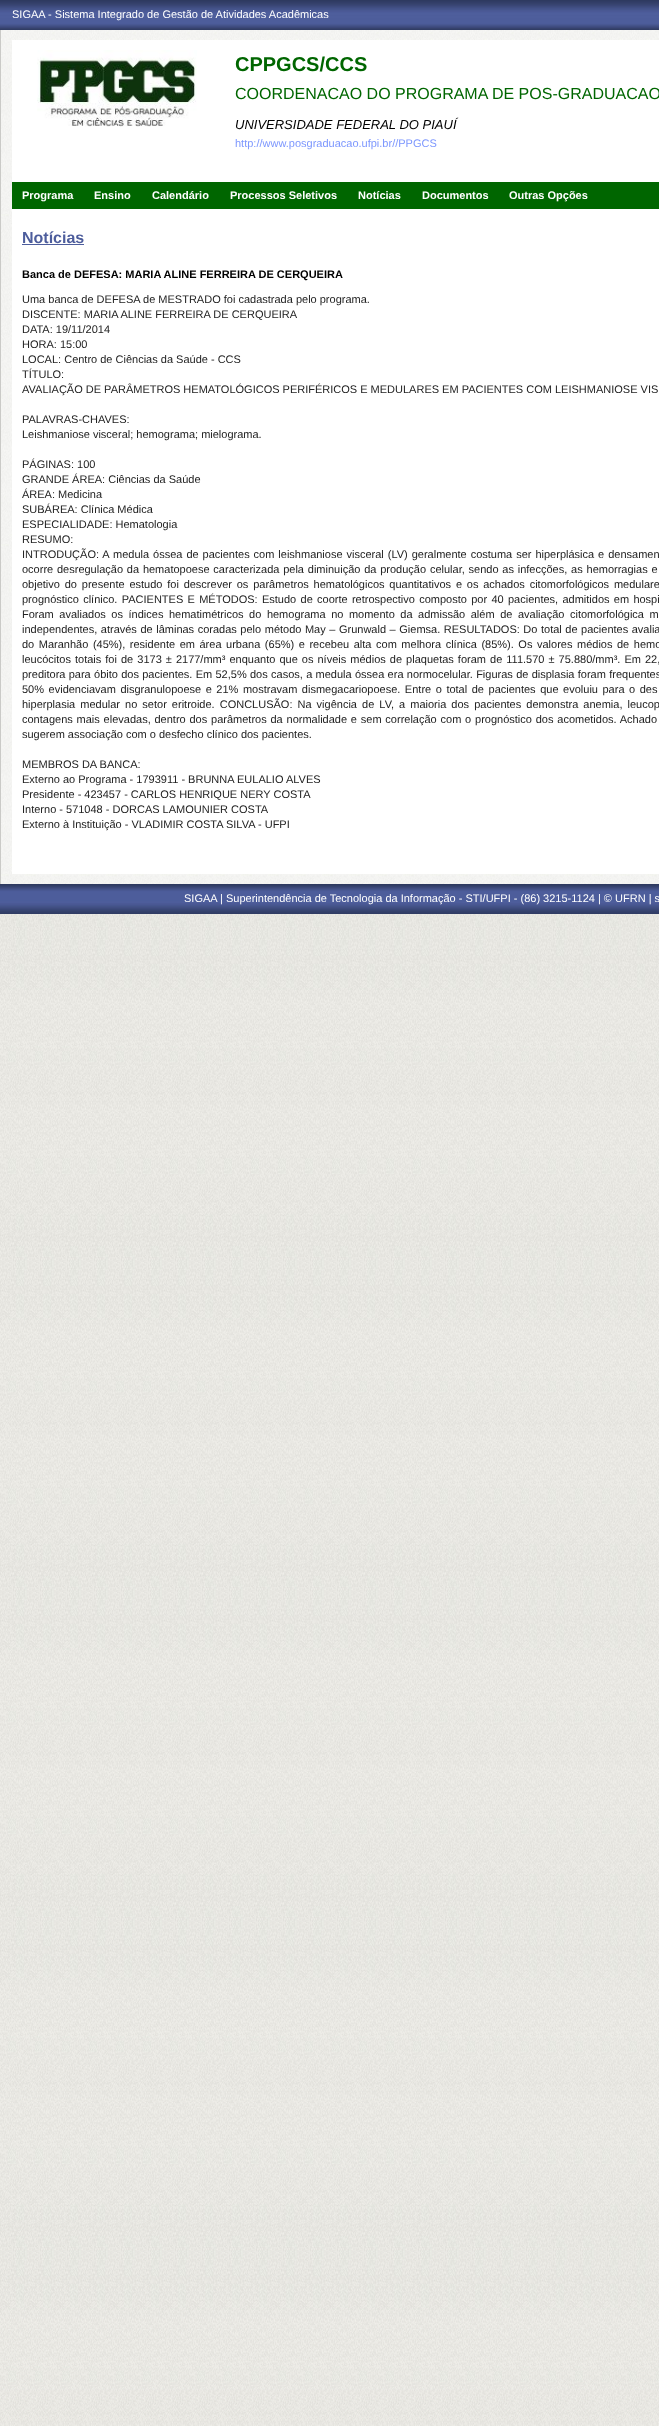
<!DOCTYPE html>
<meta charset="utf-8">
<style>body { margin: 0 } canvas { display: block }</style>
<canvas id="canvas" width="659" height="2426"></canvas>
<img id="img1" src="img_01.png" hidden>
<img id="img2" src="img_02.png" hidden>
<img id="img3" src="img_03.png" hidden>
<img id="img4" src="img_04.png" hidden>
<img id="img5" src="img_05.png" hidden>
<script>
window.onload = function () {
	const canvas = document.getElementById("canvas");
	const ctx = canvas.getContext("2d");
	ctx.miterLimit = 4;
	ctx.fontKerning = "normal";
	function txt(s, x, y) {
		ctx.fillText(s, x, y);
	}
	function fill(x, y, w, h) {
		ctx.fillRect(x, y, w, h);
	}
	function img(id, x, y, w, h) {
		ctx.drawImage(document.getElementById(id), x, y, w, h);
	}

	ctx.fillStyle = "#FFFFFF";
	fill(0, 0, 659, 2426);
	img("img1", 0, 914, 659, 1512);
	img("img2", 0, 0, 659, 30);
	img("img3", 0, 884, 659, 30);
	img("img4", 1, 30, 658, 854);
	ctx.fillStyle = "#CACAC7";
	fill(0, 30, 1, 854);
	ctx.fillStyle = "#FFFFFF";
	fill(12, 40, 647, 834);
	img("img5", 37, 50, 160, 77);
	ctx.fillStyle = "#006600";
	fill(12, 182, 647, 27);
	ctx.fillStyle = "#4D5D9C";
	fill(22, 244, 62, 1);
	ctx.font = "11px Liberation Sans";
	ctx.fillStyle = "#FFFFFF";
	txt("SIGAA - Sistema Integrado de Gestão de Atividades Acadêmicas", 12, 18);
	ctx.font = "bold 20px Liberation Sans";
	ctx.fillStyle = "#006600";
	txt("CPPGCS/CCS", 235, 71);
	ctx.font = "16px Liberation Sans";
	txt("COORDENACAO DO PROGRAMA DE POS-GRADUACAO", 235, 99);
	ctx.font = "italic 13px Liberation Sans";
	ctx.fillStyle = "#000000";
	txt("UNIVERSIDADE FEDERAL DO PIAUÍ", 235, 129);
	ctx.font = "11px Liberation Sans";
	ctx.fillStyle = "#7D97FE";
	txt("http://www.posgraduacao.ufpi.br//PPGCS", 235, 147);
	ctx.font = "bold 11px Liberation Sans";
	ctx.fillStyle = "#FFFFFF";
	txt("Programa", 22, 199);
	txt("Ensino", 94, 199);
	txt("Calendário", 152, 199);
	txt("Processos Seletivos", 230, 199);
	txt("Notícias", 358, 199);
	txt("Documentos", 422, 199);
	txt("Outras Opções", 509, 199);
	ctx.font = "bold 16px Liberation Sans";
	ctx.fillStyle = "#4D5D9C";
	txt("Notícias", 22, 243);
	ctx.font = "bold 11px Liberation Sans";
	ctx.fillStyle = "#000000";
	txt("Banca de DEFESA: MARIA ALINE FERREIRA DE CERQUEIRA", 22, 278);
	ctx.font = "11px Liberation Sans";
	ctx.fillStyle = "#222222";
	txt("Uma banca de DEFESA de MESTRADO foi cadastrada pelo programa.", 22, 303);
	txt("DISCENTE: MARIA ALINE FERREIRA DE CERQUEIRA", 22, 318);
	txt("DATA: 19/11/2014", 22, 333);
	txt("HORA: 15:00", 22, 348);
	txt("LOCAL: Centro de Ciências da Saúde - CCS", 22, 363);
	txt("TÍTULO:", 22, 378);
	txt("AVALIAÇÃO DE PARÂMETROS HEMATOLÓGICOS PERIFÉRICOS E MEDULARES EM PACIENTES COM LEISHMANIOSE VIS", 22, 393);
	txt("PALAVRAS-CHAVES:", 22, 423);
	txt("Leishmaniose visceral; hemograma; mielograma.", 22, 438);
	txt("PÁGINAS: 100", 22, 468);
	txt("GRANDE ÁREA: Ciências da Saúde", 22, 483);
	txt("ÁREA: Medicina", 22, 498);
	txt("SUBÁREA: Clínica Médica", 22, 513);
	txt("ESPECIALIDADE: Hematologia", 22, 528);
	txt("RESUMO:", 22, 543);
	ctx.wordSpacing = "0.9px";
	txt("INTRODUÇÃO: A medula óssea de pacientes com leishmaniose visceral (LV) geralmente costuma ser hiperplásica e densamen", 22, 558);
	ctx.wordSpacing = "0.75px";
	txt("ocorre desregulação da hematopoese caracterizada pela diminuição da produção celular, sendo as infecções, as hemorragias e", 22, 573);
	ctx.wordSpacing = "1.75px";
	txt("objetivo do presente estudo foi descrever os parâmetros hematológicos quantitativos e os achados citomorfológicos medulare", 22, 588);
	ctx.wordSpacing = "1.25px";
	txt("prognóstico clínico. PACIENTES E MÉTODOS: Estudo de coorte retrospectivo composto por 40 pacientes, admitidos em hospi", 22, 603);
	ctx.wordSpacing = "2.5px";
	txt("Foram avaliados os índices hematimétricos do hemograma no momento da admissão além de avaliação citomorfológica m", 22, 618);
	ctx.wordSpacing = "0.5px";
	txt("independentes, através de lâminas coradas pelo método May – Grunwald – Giemsa. RESULTADOS: Do total de pacientes avalia", 22, 633);
	ctx.wordSpacing = "1.5px";
	txt("do Maranhão (45%), residente em área urbana (65%) e recebeu alta com melhora clínica (85%). Os valores médios de hemo", 22, 648);
	ctx.wordSpacing = "1px";
	txt("leucócitos totais foi de 3173 ± 2177/mm³ enquanto que os níveis médios de plaquetas foram de 111.570 ± 75.880/mm³. Em 22,", 22, 663);
	ctx.wordSpacing = "0.25px";
	txt("preditora para óbito dos pacientes. Em 52,5% dos casos, a medula óssea era normocelular. Figuras de displasia foram frequentes", 22, 678);
	ctx.wordSpacing = "1.5px";
	txt("50% evidenciavam disgranulopoese e 21% mostravam dismegacariopoese. Entre o total de pacientes que evoluiu para o des", 22, 693);
	ctx.wordSpacing = "2px";
	txt("hiperplasia medular no setor eritroide. CONCLUSÃO: Na vigência de LV, a maioria dos pacientes demonstra anemia, leucop", 22, 708);
	ctx.wordSpacing = "0.75px";
	txt("contagens mais elevadas, dentro dos parâmetros da normalidade e sem correlação com o prognóstico dos acometidos. Achado", 22, 723);
	ctx.wordSpacing = "0px";
	txt("sugerem associação com o desfecho clínico dos pacientes.", 22, 738);
	txt("MEMBROS DA BANCA:", 22, 768);
	txt("Externo ao Programa - 1793911 - BRUNNA EULALIO ALVES", 22, 783);
	txt("Presidente - 423457 - CARLOS HENRIQUE NERY COSTA", 22, 798);
	txt("Interno - 571048 - DORCAS LAMOUNIER COSTA", 22, 813);
	txt("Externo à Instituição - VLADIMIR COSTA SILVA - UFPI", 22, 828);
	ctx.fillStyle = "#FFFFFF";
	txt("SIGAA | Superintendência de Tecnologia da Informação - STI/UFPI - (86) 3215-1124 | © UFRN | s", 184, 902);
};
</script>
